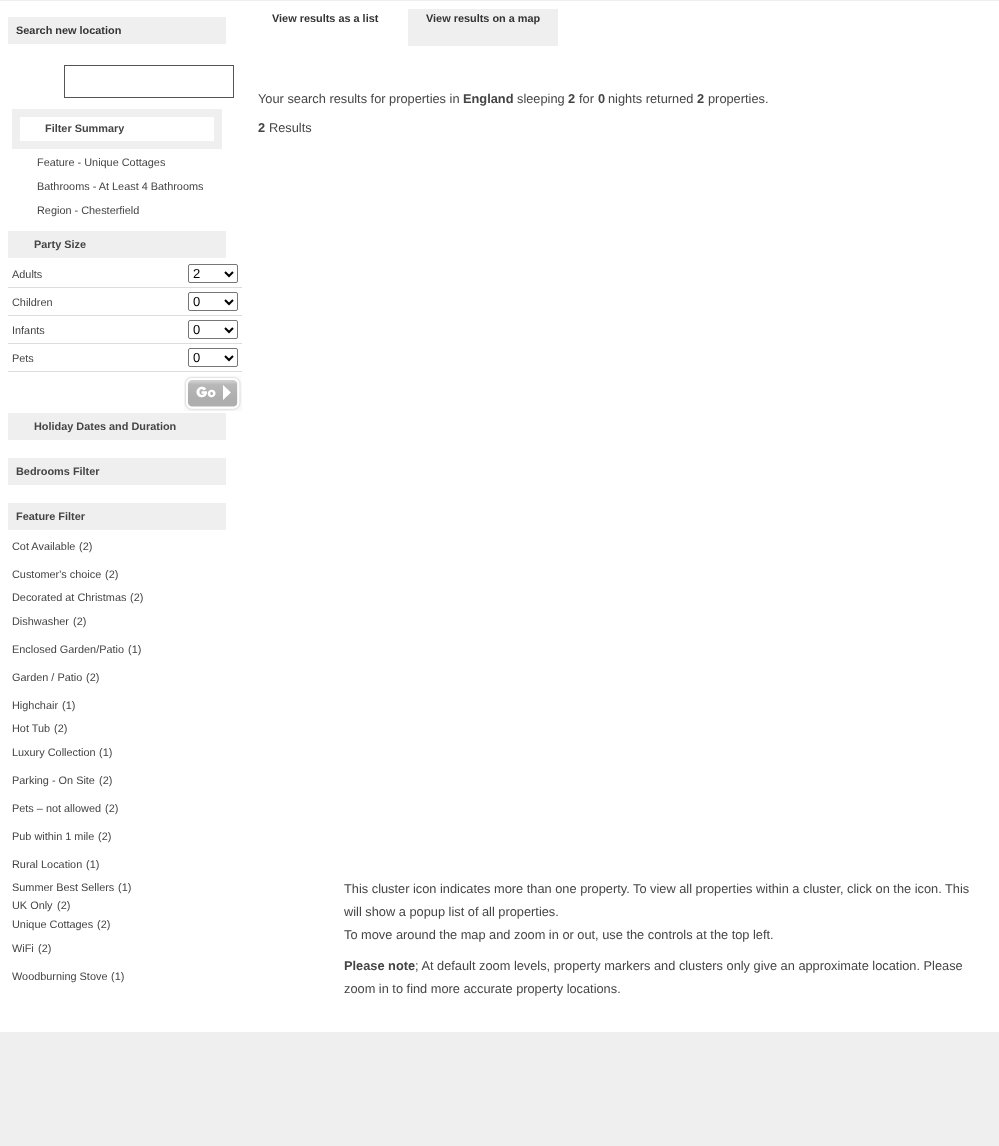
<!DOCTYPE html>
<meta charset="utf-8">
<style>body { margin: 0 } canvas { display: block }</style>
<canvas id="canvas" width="999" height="1146"></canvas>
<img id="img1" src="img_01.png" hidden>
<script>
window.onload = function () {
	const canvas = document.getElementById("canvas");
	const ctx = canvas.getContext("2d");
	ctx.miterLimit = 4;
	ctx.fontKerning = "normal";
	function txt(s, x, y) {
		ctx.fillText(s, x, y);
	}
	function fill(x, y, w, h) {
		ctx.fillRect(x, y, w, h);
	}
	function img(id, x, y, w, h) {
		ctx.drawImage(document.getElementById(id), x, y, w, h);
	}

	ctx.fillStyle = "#EFEFEF";
	fill(0, 0, 999, 1146);
	ctx.fillStyle = "#FFFFFF";
	fill(0, 1, 999, 1031);
	ctx.fillStyle = "#EFEFEF";
	fill(8, 17, 218, 27);
	ctx.strokeStyle = "#555555";
	ctx.strokeRect(64.5, 65.5, 169, 32);
	fill(408, 9, 150, 37);
	fill(12, 109, 210, 40);
	ctx.fillStyle = "#FFFFFF";
	fill(20, 117, 194, 24);
	ctx.fillStyle = "#EFEFEF";
	fill(8, 231, 218, 27);
	ctx.fillStyle = "#DDDDDD";
	fill(8, 287, 234, 1);
	ctx.beginPath();
	ctx.roundRect(188.5, 264.5, 49, 18, 1.5);
	ctx.strokeStyle = "#767676";
	ctx.stroke();
	ctx.beginPath();
	ctx.moveTo(225, 272);
	ctx.lineTo(229, 276);
	ctx.lineTo(233, 272);
	ctx.strokeStyle = "#000000";
	ctx.lineWidth = 2;
	ctx.stroke();
	fill(8, 315, 234, 1);
	ctx.beginPath();
	ctx.roundRect(188.5, 292.5, 49, 18, 1.5);
	ctx.strokeStyle = "#767676";
	ctx.lineWidth = 1;
	ctx.stroke();
	ctx.beginPath();
	ctx.moveTo(225, 300);
	ctx.lineTo(229, 304);
	ctx.lineTo(233, 300);
	ctx.strokeStyle = "#000000";
	ctx.lineWidth = 2;
	ctx.stroke();
	fill(8, 343, 234, 1);
	ctx.beginPath();
	ctx.roundRect(188.5, 320.5, 49, 18, 1.5);
	ctx.strokeStyle = "#767676";
	ctx.lineWidth = 1;
	ctx.stroke();
	ctx.beginPath();
	ctx.moveTo(225, 328);
	ctx.lineTo(229, 332);
	ctx.lineTo(233, 328);
	ctx.strokeStyle = "#000000";
	ctx.lineWidth = 2;
	ctx.stroke();
	fill(8, 371, 234, 1);
	ctx.beginPath();
	ctx.roundRect(188.5, 348.5, 49, 18, 1.5);
	ctx.strokeStyle = "#767676";
	ctx.lineWidth = 1;
	ctx.stroke();
	ctx.beginPath();
	ctx.moveTo(225, 356);
	ctx.lineTo(229, 360);
	ctx.lineTo(233, 356);
	ctx.strokeStyle = "#000000";
	ctx.lineWidth = 2;
	ctx.stroke();
	img("img1", 184, 376, 58, 35);
	ctx.fillStyle = "#EFEFEF";
	fill(8, 413, 218, 27);
	fill(8, 458, 218, 27);
	fill(8, 503, 218, 27);
	ctx.font = "bold 10.9px Liberation Sans";
	ctx.fillStyle = "#333333";
	txt("Search new location", 16, 34);
	txt("View results as a list", 272, 22);
	txt("View results on a map", 426, 22);
	ctx.font = "12.8px Liberation Sans";
	ctx.fillStyle = "#444444";
	txt("Your search results for properties in", 258, 103);
	ctx.font = "bold 12.8px Liberation Sans";
	txt("England", 463, 103);
	ctx.font = "12.8px Liberation Sans";
	txt("sleeping", 517, 103);
	ctx.font = "bold 12.8px Liberation Sans";
	txt("2", 568, 103);
	ctx.font = "12.8px Liberation Sans";
	txt("for", 579, 103);
	ctx.font = "bold 12.8px Liberation Sans";
	txt("0", 598, 103);
	ctx.font = "12.8px Liberation Sans";
	txt("nights returned", 608, 103);
	ctx.font = "bold 12.8px Liberation Sans";
	txt("2", 697, 103);
	ctx.font = "12.8px Liberation Sans";
	txt("properties.", 708, 103);
	ctx.font = "bold 12.8px Liberation Sans";
	txt("2", 258, 132);
	ctx.font = "12.8px Liberation Sans";
	txt("Results", 269, 132);
	txt("This cluster icon indicates more than one property. To view all properties within a cluster, click on the icon. This", 344, 893);
	txt("will show a popup list of all properties.", 344, 916);
	txt("To move around the map and zoom in or out, use the controls at the top left.", 344, 939);
	ctx.font = "bold 12.8px Liberation Sans";
	txt("Please note", 344, 970);
	ctx.font = "12.8px Liberation Sans";
	txt("; At default zoom levels, property markers and clusters only give an approximate location. Please", 415, 970);
	txt("zoom in to find more accurate property locations.", 344, 993);
	ctx.font = "bold 10.9px Liberation Sans";
	txt("Filter Summary", 45, 132);
	ctx.font = "10.9px Liberation Sans";
	txt("Feature - Unique Cottages", 37, 166);
	txt("Bathrooms - At Least 4 Bathrooms", 37, 190);
	txt("Region - Chesterfield", 37, 214);
	ctx.font = "bold 10.9px Liberation Sans";
	txt("Party Size", 34, 248);
	ctx.font = "10.9px Liberation Sans";
	txt("Adults", 12, 278);
	ctx.font = "13px Liberation Sans";
	ctx.fillStyle = "#000000";
	txt("2", 193, 278);
	ctx.font = "10.9px Liberation Sans";
	ctx.fillStyle = "#444444";
	txt("Children", 12, 306);
	ctx.font = "13px Liberation Sans";
	ctx.fillStyle = "#000000";
	txt("0", 193, 306);
	ctx.font = "10.9px Liberation Sans";
	ctx.fillStyle = "#444444";
	txt("Infants", 12, 334);
	ctx.font = "13px Liberation Sans";
	ctx.fillStyle = "#000000";
	txt("0", 193, 334);
	ctx.font = "10.9px Liberation Sans";
	ctx.fillStyle = "#444444";
	txt("Pets", 12, 362);
	ctx.font = "13px Liberation Sans";
	ctx.fillStyle = "#000000";
	txt("0", 193, 362);
	ctx.font = "bold 10.9px Liberation Sans";
	ctx.fillStyle = "#444444";
	txt("Holiday Dates and Duration", 34, 430);
	txt("Bedrooms Filter", 16, 475);
	txt("Feature Filter", 16, 520);
	ctx.font = "10.9px Liberation Sans";
	txt("Cot Available", 12, 550);
	txt("(2)", 79, 550);
	txt("Customer's choice", 12, 578);
	txt("(2)", 105, 578);
	txt("Decorated at Christmas", 12, 601);
	txt("(2)", 130, 601);
	txt("Dishwasher", 12, 625);
	txt("(2)", 73, 625);
	txt("Enclosed Garden/Patio", 12, 653);
	txt("(1)", 128, 653);
	txt("Garden / Patio", 12, 681);
	txt("(2)", 86, 681);
	txt("Highchair", 12, 709);
	txt("(1)", 62, 709);
	txt("Hot Tub", 12, 732);
	txt("(2)", 54, 732);
	txt("Luxury Collection", 12, 756);
	txt("(1)", 99, 756);
	txt("Parking - On Site", 12, 784);
	txt("(2)", 99, 784);
	txt("Pets – not allowed", 12, 812);
	txt("(2)", 105, 812);
	txt("Pub within 1 mile", 12, 840);
	txt("(2)", 98, 840);
	txt("Rural Location", 12, 868);
	txt("(1)", 86, 868);
	txt("Summer Best Sellers", 12, 891);
	txt("(1)", 118, 891);
	txt("UK Only", 12, 909);
	txt("(2)", 57, 909);
	txt("Unique Cottages", 12, 928);
	txt("(2)", 97, 928);
	txt("WiFi", 12, 952);
	txt("(2)", 38, 952);
	txt("Woodburning Stove", 12, 980);
	txt("(1)", 111, 980);
};
</script>
